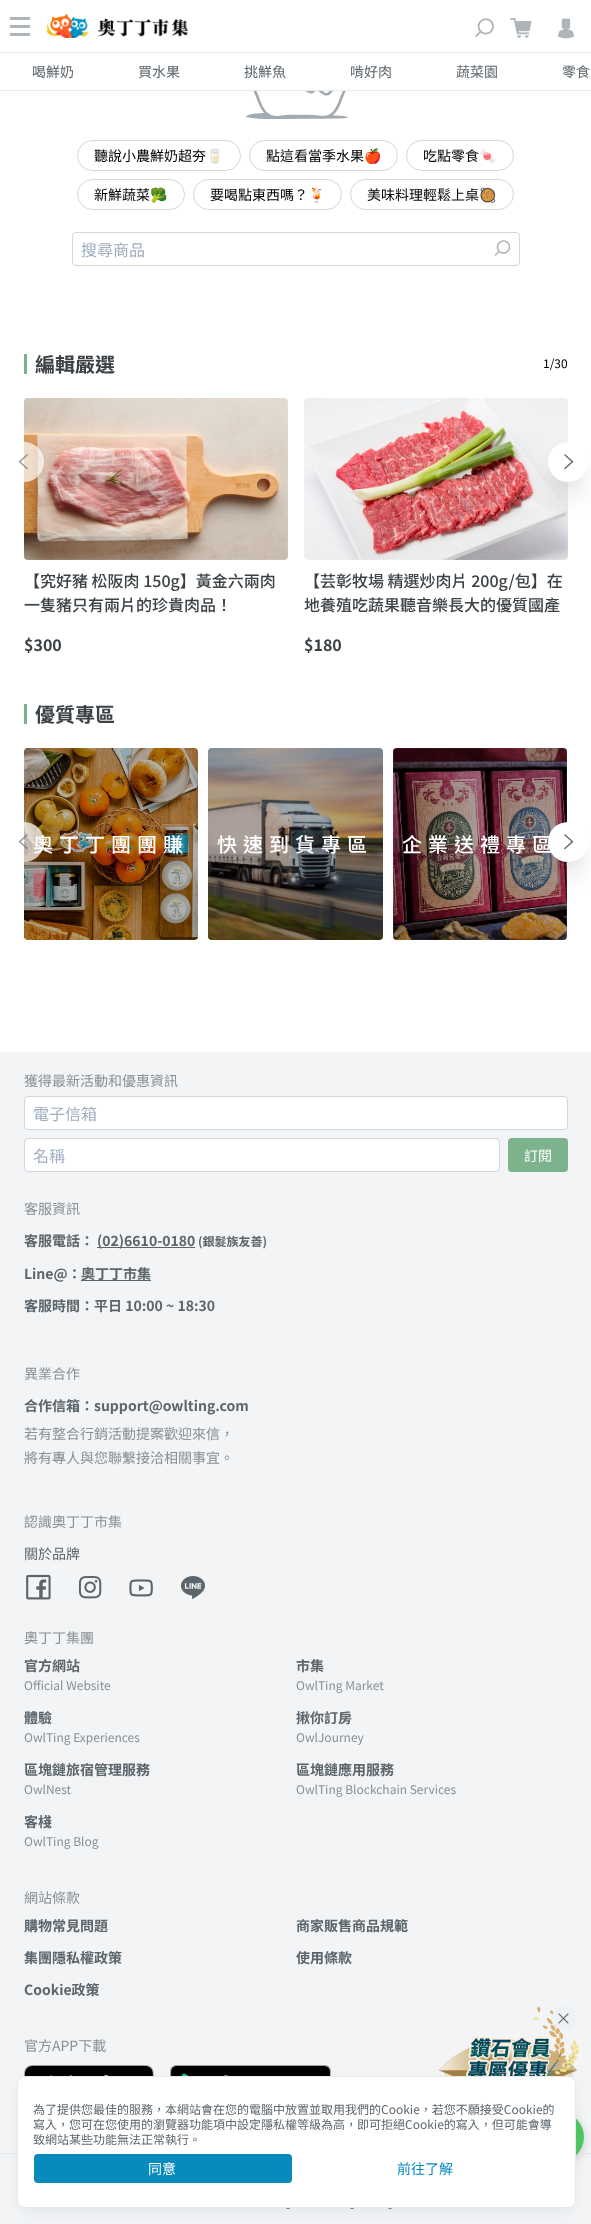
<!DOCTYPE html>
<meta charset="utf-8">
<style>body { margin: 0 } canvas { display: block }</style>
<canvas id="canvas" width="591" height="2224"></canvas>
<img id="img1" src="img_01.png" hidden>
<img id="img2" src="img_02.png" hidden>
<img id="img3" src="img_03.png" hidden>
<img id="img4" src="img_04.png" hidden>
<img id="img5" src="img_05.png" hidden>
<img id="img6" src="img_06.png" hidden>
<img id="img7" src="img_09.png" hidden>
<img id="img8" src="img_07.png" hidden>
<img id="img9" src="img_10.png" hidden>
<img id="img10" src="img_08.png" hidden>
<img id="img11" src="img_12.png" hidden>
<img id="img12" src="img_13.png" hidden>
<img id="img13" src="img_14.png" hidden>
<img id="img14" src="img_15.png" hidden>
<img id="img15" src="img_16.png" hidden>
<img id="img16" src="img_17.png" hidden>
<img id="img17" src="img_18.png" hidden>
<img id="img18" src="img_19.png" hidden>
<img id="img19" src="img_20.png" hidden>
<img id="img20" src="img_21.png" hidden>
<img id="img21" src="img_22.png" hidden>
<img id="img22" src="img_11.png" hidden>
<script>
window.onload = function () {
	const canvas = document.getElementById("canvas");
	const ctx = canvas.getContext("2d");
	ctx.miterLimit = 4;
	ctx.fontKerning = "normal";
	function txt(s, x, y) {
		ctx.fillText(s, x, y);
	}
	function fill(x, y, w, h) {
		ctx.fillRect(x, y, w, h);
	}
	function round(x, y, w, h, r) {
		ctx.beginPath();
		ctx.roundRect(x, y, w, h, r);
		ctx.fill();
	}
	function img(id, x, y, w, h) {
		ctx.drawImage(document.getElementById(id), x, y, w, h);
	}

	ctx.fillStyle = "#FFFFFF";
	fill(0, 0, 591, 2224);
	ctx.fillStyle = "#E6EAED";
	fill(0, 52, 591, 1);
	ctx.fillStyle = "#ADB4BA";
	fill(10, 17, 20, 3);
	fill(10, 25, 20, 3);
	fill(10, 33, 20, 3);
	img("img1", 46, 14, 142, 24);
	img("img2", 475, 18, 19, 19);
	img("img3", 510, 18, 22, 20);
	img("img4", 557, 18, 18, 21);
	ctx.fillStyle = "#E6EAED";
	fill(0, 90, 591, 1);
	img("img5", 246, 91, 103, 28);
	ctx.beginPath();
	ctx.roundRect(77.5, 140.5, 163, 30, 15);
	ctx.strokeStyle = "#D1D7DD";
	ctx.stroke();
	ctx.beginPath();
	ctx.roundRect(249.5, 140.5, 148, 30, 15);
	ctx.stroke();
	ctx.beginPath();
	ctx.roundRect(406.5, 140.5, 107, 30, 15);
	ctx.stroke();
	ctx.beginPath();
	ctx.roundRect(77.5, 179.5, 107, 30, 15);
	ctx.stroke();
	ctx.beginPath();
	ctx.roundRect(193.5, 179.5, 148, 30, 15);
	ctx.stroke();
	ctx.beginPath();
	ctx.roundRect(350.5, 179.5, 163, 30, 15);
	ctx.stroke();
	ctx.beginPath();
	ctx.roundRect(72.5, 232.5, 447, 33, 3.5);
	ctx.stroke();
	img("img6", 494, 240, 17, 16);
	ctx.fillStyle = "#7CB38D";
	fill(24, 354, 3, 20);
	img("img7", 24, 398, 264, 162);
	ctx.fillStyle = "rgba(255, 255, 255, 0.7)";
	ctx.beginPath();
	ctx.arc(24, 462, 20, 0, Math.PI * 2);
	ctx.fill();
	img("img8", 18, 454, 10, 16);
	img("img9", 304, 398, 264, 162);
	ctx.fillStyle = "rgba(0, 0, 0, 0.04)";
	ctx.filter = "blur(5px)";
	ctx.beginPath();
	ctx.roundRect(553, 457, 30, 30, 15);
	ctx.fill();
	ctx.filter = "none";
	ctx.fillStyle = "rgba(0, 0, 0, 0.1)";
	ctx.filter = "blur(12.5px)";
	ctx.beginPath();
	ctx.roundRect(553, 467, 30, 30, 15);
	ctx.fill();
	ctx.filter = "none";
	ctx.fillStyle = "#FFFFFF";
	ctx.beginPath();
	ctx.arc(568, 462, 20, 0, Math.PI * 2);
	ctx.fill();
	img("img10", 564, 454, 10, 16);
	ctx.fillStyle = "#7CB38D";
	fill(24, 704, 3, 20);
	img("img11", 24, 748, 174, 192);
	ctx.fillStyle = "rgba(0, 0, 0, 0.3)";
	round(24, 748, 174, 192, 4);
	img("img12", 208, 748, 175, 192);
	round(208, 748, 175, 192, 4);
	img("img13", 393, 748, 174, 192);
	round(393, 748, 174, 192, 4);
	ctx.fillStyle = "rgba(0, 0, 0, 0.04)";
	ctx.filter = "blur(5px)";
	ctx.beginPath();
	ctx.roundRect(553, 837, 30, 30, 15);
	ctx.fill();
	ctx.filter = "none";
	ctx.fillStyle = "rgba(0, 0, 0, 0.1)";
	ctx.filter = "blur(12.5px)";
	ctx.beginPath();
	ctx.roundRect(553, 847, 30, 30, 15);
	ctx.fill();
	ctx.filter = "none";
	ctx.fillStyle = "#FFFFFF";
	ctx.beginPath();
	ctx.arc(568, 842, 20, 0, Math.PI * 2);
	ctx.fill();
	img("img10", 564, 834, 10, 16);
	ctx.fillStyle = "#F2F4F6";
	fill(0, 1052, 591, 1172);
	ctx.fillStyle = "#FFFFFF";
	ctx.beginPath();
	ctx.roundRect(24.5, 1096.5, 543, 33, 3.5);
	ctx.fill();
	ctx.stroke();
	ctx.beginPath();
	ctx.roundRect(24.5, 1138.5, 475, 33, 3.5);
	ctx.fill();
	ctx.stroke();
	ctx.fillStyle = "#7CB38D";
	round(508, 1138, 60, 34, 4);
	ctx.fillStyle = "#5C656B";
	fill(97, 1247, 98, 1);
	fill(81, 1280, 70, 1);
	img("img14", 26, 1574, 25, 26);
	img("img15", 78, 1576, 24, 23);
	img("img16", 129, 1579, 24, 18);
	img("img17", 181, 1576, 24, 23);
	img("img18", 24, 2065, 130, 12);
	img("img19", 170, 2065, 161, 11);
	ctx.fillStyle = "#E6EAED";
	fill(0, 2153, 591, 1);
	img("img20", 438, 2006, 141, 72);
	ctx.fillStyle = "#EDF2F7";
	ctx.beginPath();
	ctx.arc(564, 2018, 12, 0, Math.PI * 2);
	ctx.fill();
	img("img21", 558, 2013, 11, 11);
	ctx.fillStyle = "rgba(0, 0, 0, 0.15)";
	ctx.filter = "blur(6px)";
	ctx.beginPath();
	ctx.roundRect(534, 2115, 50, 50, 25);
	ctx.fill();
	ctx.filter = "none";
	ctx.fillStyle = "#4DC764";
	ctx.beginPath();
	ctx.arc(559, 2137, 25, 0, Math.PI * 2);
	ctx.fill();
	ctx.fillStyle = "rgba(92, 101, 107, 0.15)";
	ctx.filter = "blur(7.5px)";
	ctx.beginPath();
	ctx.roundRect(22, 2086, 549, 122, 3);
	ctx.fill();
	ctx.filter = "none";
	ctx.fillStyle = "#FFFFFF";
	ctx.beginPath();
	ctx.roundRect(17.5, 2076.5, 558, 131, 7.5);
	ctx.fill();
	ctx.strokeStyle = "#E6EAED";
	ctx.stroke();
	ctx.fillStyle = "#078ABC";
	round(34, 2154, 258, 29, 4);
	ctx.font = "14px Noto Sans TC";
	ctx.fillStyle = "#5C656B";
	txt("喝鮮奶", 32, 77);
	txt("買水果", 138, 77);
	txt("挑鮮魚", 244, 77);
	txt("啃好肉", 350, 77);
	txt("蔬菜園", 456, 77);
	txt("零食", 562, 77);
	ctx.fillStyle = "#000000";
	txt("聽說小農鮮奶超夯", 94, 161);
	ctx.font = "14px Noto Color Emoji";
	txt("🥛", 206, 161);
	ctx.font = "14px Noto Sans TC";
	txt("點這看當季水果", 266, 161);
	ctx.font = "14px Noto Color Emoji";
	txt("🍎", 364, 161);
	ctx.font = "14px Noto Sans TC";
	txt("吃點零食", 423, 161);
	ctx.font = "14px Noto Color Emoji";
	txt("🍬", 479, 161);
	ctx.font = "14px Noto Sans TC";
	txt("新鮮蔬菜", 94, 200);
	ctx.font = "14px Noto Color Emoji";
	txt("🥦", 150, 200);
	ctx.font = "14px Noto Sans TC";
	txt("要喝點東西嗎？", 210, 200);
	ctx.font = "14px Noto Color Emoji";
	txt("🍹", 308, 200);
	ctx.font = "14px Noto Sans TC";
	txt("美味料理輕鬆上桌", 367, 200);
	ctx.font = "14px Noto Color Emoji";
	txt("🥘", 479, 200);
	ctx.font = "16px Noto Sans TC";
	ctx.fillStyle = "#A0AEC0";
	txt("搜尋商品", 81, 256);
	ctx.font = "bold 20px Noto Sans TC";
	ctx.fillStyle = "#3C4145";
	txt("編輯嚴選", 35, 372);
	ctx.font = "12px Noto Sans TC";
	ctx.fillStyle = "#000000";
	txt("1/30", 543, 368);
	ctx.font = "500 16px Noto Sans TC";
	ctx.fillStyle = "#3C4145";
	txt("【究好豬 松阪肉 150g】黃金六兩肉", 24, 587);
	txt("一隻豬只有兩片的珍貴肉品！", 24, 611);
	ctx.font = "bold 16px Noto Sans TC";
	txt("$300", 24, 651);
	ctx.font = "500 16px Noto Sans TC";
	txt("【芸彰牧場 精選炒肉片 200g/包】在", 304, 587);
	txt("地養殖吃蔬果聽音樂長大的優質國產", 304, 611);
	ctx.font = "bold 16px Noto Sans TC";
	txt("$180", 304, 651);
	ctx.font = "bold 20px Noto Sans TC";
	txt("優質專區", 35, 722);
	ctx.letterSpacing = "6px";
	ctx.font = "500 20px Noto Sans TC";
	ctx.fillStyle = "#FFFFFF";
	txt("奧丁丁團團賺", 33, 852);
	ctx.fillStyle = "rgba(255, 255, 255, 0.7)";
	ctx.beginPath();
	ctx.arc(24, 842, 20, 0, Math.PI * 2);
	ctx.fill();
	img("img22", 18, 834, 10, 16);
	ctx.fillStyle = "#FFFFFF";
	txt("快速到貨專區", 217, 852);
	txt("企業送禮專區", 402, 852);
	ctx.letterSpacing = "0px";
	ctx.font = "14px Noto Sans TC";
	ctx.fillStyle = "#889096";
	txt("獲得最新活動和優惠資訊", 24, 1086);
	ctx.font = "16px Noto Sans TC";
	ctx.fillStyle = "#A0AEC0";
	txt("電子信箱", 33, 1120);
	txt("名稱", 33, 1162);
	ctx.font = "14px Noto Sans TC";
	ctx.fillStyle = "#FFFFFF";
	txt("訂閱", 524, 1161);
	ctx.fillStyle = "#889096";
	txt("客服資訊", 24, 1214);
	ctx.font = "bold 14px Noto Sans TC";
	ctx.fillStyle = "#5C656B";
	txt("客服電話：", 24, 1246);
	txt("(02)6610-0180", 97, 1246);
	ctx.font = "bold 12px Noto Sans TC";
	txt("(銀髮族友善)", 198, 1246);
	ctx.font = "bold 14px Noto Sans TC";
	txt("Line@：", 24, 1279);
	txt("奧丁丁市集", 81, 1279);
	txt("客服時間：平日 10:00 ~ 18:30", 24, 1311);
	ctx.font = "14px Noto Sans TC";
	ctx.fillStyle = "#889096";
	txt("異業合作", 24, 1379);
	ctx.font = "bold 14px Noto Sans TC";
	ctx.fillStyle = "#5C656B";
	txt("合作信箱：support@owlting.com", 24, 1411);
	ctx.font = "14px Noto Sans TC";
	ctx.fillStyle = "#889096";
	txt("若有整合行銷活動提案歡迎來信，", 24, 1439);
	txt("將有專人與您聯繫接洽相關事宜。", 24, 1463);
	txt("認識奧丁丁市集", 24, 1527);
	ctx.fillStyle = "#5C656B";
	txt("關於品牌", 24, 1559);
	ctx.fillStyle = "#889096";
	txt("奧丁丁集團", 24, 1643);
	ctx.font = "bold 14px Noto Sans TC";
	ctx.fillStyle = "#5C656B";
	txt("官方網站", 24, 1671);
	ctx.font = "12px Noto Sans TC";
	ctx.fillStyle = "#889096";
	txt("Official Website", 24, 1690);
	ctx.font = "bold 14px Noto Sans TC";
	ctx.fillStyle = "#5C656B";
	txt("市集", 296, 1671);
	ctx.font = "12px Noto Sans TC";
	ctx.fillStyle = "#889096";
	txt("OwlTing Market", 296, 1690);
	ctx.font = "bold 14px Noto Sans TC";
	ctx.fillStyle = "#5C656B";
	txt("體驗", 24, 1723);
	ctx.font = "12px Noto Sans TC";
	ctx.fillStyle = "#889096";
	txt("OwlTing Experiences", 24, 1742);
	ctx.font = "bold 14px Noto Sans TC";
	ctx.fillStyle = "#5C656B";
	txt("揪你訂房", 296, 1723);
	ctx.font = "12px Noto Sans TC";
	ctx.fillStyle = "#889096";
	txt("OwlJourney", 296, 1742);
	ctx.font = "bold 14px Noto Sans TC";
	ctx.fillStyle = "#5C656B";
	txt("區塊鏈旅宿管理服務", 24, 1775);
	ctx.font = "12px Noto Sans TC";
	ctx.fillStyle = "#889096";
	txt("OwlNest", 24, 1794);
	ctx.font = "bold 14px Noto Sans TC";
	ctx.fillStyle = "#5C656B";
	txt("區塊鏈應用服務", 296, 1775);
	ctx.font = "12px Noto Sans TC";
	ctx.fillStyle = "#889096";
	txt("OwlTing Blockchain Services", 296, 1794);
	ctx.font = "bold 14px Noto Sans TC";
	ctx.fillStyle = "#5C656B";
	txt("客棧", 24, 1827);
	ctx.font = "12px Noto Sans TC";
	ctx.fillStyle = "#889096";
	txt("OwlTing Blog", 24, 1846);
	ctx.font = "14px Noto Sans TC";
	txt("網站條款", 24, 1903);
	ctx.font = "bold 14px Noto Sans TC";
	ctx.fillStyle = "#5C656B";
	txt("購物常見問題", 24, 1931);
	txt("商家販售商品規範", 296, 1931);
	txt("集團隱私權政策", 24, 1963);
	txt("使用條款", 296, 1963);
	txt("Cookie政策", 24, 1995);
	ctx.font = "14px Noto Sans TC";
	ctx.fillStyle = "#889096";
	txt("官方APP下載", 24, 2051);
	ctx.font = "12px Noto Sans TC";
	ctx.fillStyle = "#5C656B";
	txt("-", 286, 2212);
	txt("-", 350, 2212);
	txt("-", 388, 2212);
	txt("為了提供您最佳的服務，本網站會在您的電腦中放置並取用我們的Cookie，若您不願接受Cookie的", 33, 2114);
	txt("寫入，您可在您使用的瀏覽器功能項中設定隱私權等級為高，即可拒絕Cookie的寫入，但可能會導", 33, 2129);
	txt("致網站某些功能無法正常執行。", 33, 2144);
	ctx.font = "14px Noto Sans TC";
	ctx.fillStyle = "#FFFFFF";
	txt("同意", 148, 2174);
	ctx.fillStyle = "#078ABC";
	txt("前往了解", 397, 2174);
};
</script>
